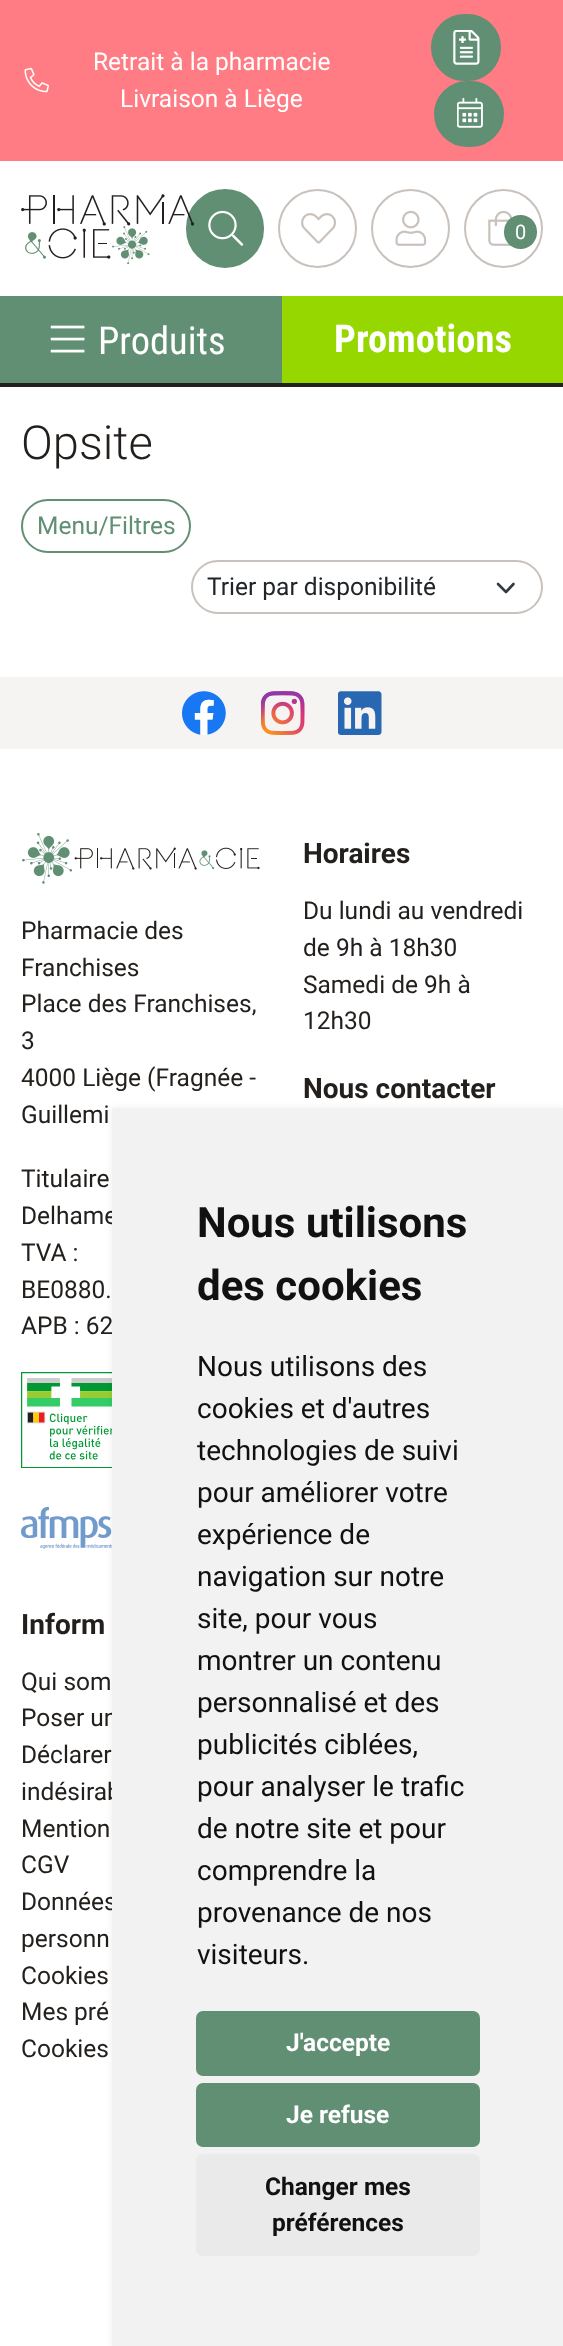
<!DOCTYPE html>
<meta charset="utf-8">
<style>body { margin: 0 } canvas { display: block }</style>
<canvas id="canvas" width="563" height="2346"></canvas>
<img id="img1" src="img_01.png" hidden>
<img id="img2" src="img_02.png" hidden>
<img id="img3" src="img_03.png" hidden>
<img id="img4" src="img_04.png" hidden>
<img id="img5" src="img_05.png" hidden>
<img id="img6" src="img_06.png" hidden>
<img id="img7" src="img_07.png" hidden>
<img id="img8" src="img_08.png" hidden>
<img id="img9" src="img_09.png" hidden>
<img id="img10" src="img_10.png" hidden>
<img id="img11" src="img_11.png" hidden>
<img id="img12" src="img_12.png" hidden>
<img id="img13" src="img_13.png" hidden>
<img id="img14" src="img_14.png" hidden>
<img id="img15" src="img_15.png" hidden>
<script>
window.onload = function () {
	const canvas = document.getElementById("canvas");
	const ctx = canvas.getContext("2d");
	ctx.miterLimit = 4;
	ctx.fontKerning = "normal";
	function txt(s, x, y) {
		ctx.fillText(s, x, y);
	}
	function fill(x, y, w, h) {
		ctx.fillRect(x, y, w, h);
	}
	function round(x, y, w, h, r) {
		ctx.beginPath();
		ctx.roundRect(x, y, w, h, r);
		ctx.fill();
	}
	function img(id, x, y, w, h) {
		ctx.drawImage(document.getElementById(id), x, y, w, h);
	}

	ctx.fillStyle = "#FFFFFF";
	fill(0, 0, 563, 2346);
	ctx.fillStyle = "#221F1C";
	fill(0, 383, 563, 4);
	ctx.fillStyle = "#FF7C84";
	fill(0, 0, 563, 161);
	img("img1", 24, 67, 25, 26);
	ctx.fillStyle = "#618F74";
	ctx.beginPath();
	ctx.roundRect(432, 15, 68, 65, 32.5);
	ctx.fill();
	ctx.strokeStyle = "#618F74";
	ctx.lineWidth = 2;
	ctx.stroke();
	img("img2", 453, 30, 27, 35);
	ctx.beginPath();
	ctx.roundRect(435, 82, 68, 64, 32);
	ctx.fill();
	ctx.stroke();
	img("img3", 457, 98, 26, 30);
	ctx.beginPath();
	ctx.roundRect(187, 190, 76, 77, 38);
	ctx.fill();
	ctx.stroke();
	img("img4", 21, 194, 173, 70);
	img("img5", 208, 210, 36, 36);
	ctx.beginPath();
	ctx.arc(317.5, 228.5, 38.5, 0, Math.PI * 2);
	ctx.strokeStyle = "#C9C1BC";
	ctx.stroke();
	img("img6", 301, 213, 35, 31);
	ctx.beginPath();
	ctx.arc(410.5, 228.5, 38.5, 0, Math.PI * 2);
	ctx.stroke();
	img("img7", 395, 210, 32, 36);
	ctx.beginPath();
	ctx.arc(503.5, 228.5, 38.5, 0, Math.PI * 2);
	ctx.stroke();
	img("img8", 488, 210, 25, 36);
	round(504, 215, 33, 34, 16.5);
	fill(0, 296, 282, 87);
	img("img9", 50, 325, 35, 28);
	ctx.fillStyle = "#97D700";
	fill(282, 296, 281, 87);
	ctx.beginPath();
	ctx.roundRect(22, 500, 168, 52, 26);
	ctx.strokeStyle = "#618F74";
	ctx.stroke();
	ctx.beginPath();
	ctx.moveTo(498, 584);
	ctx.lineTo(506, 592);
	ctx.lineTo(513.5, 584);
	ctx.strokeStyle = "#343A40";
	ctx.lineWidth = 2.6;
	ctx.lineCap = "round";
	ctx.lineJoin = "round";
	ctx.stroke();
	ctx.beginPath();
	ctx.roundRect(192, 561, 350, 52, 26);
	ctx.strokeStyle = "#C9C1BC";
	ctx.lineWidth = 2;
	ctx.lineJoin = "miter";
	ctx.stroke();
	ctx.fillStyle = "#F5F4F2";
	fill(0, 677, 563, 72);
	img("img10", 182, 691, 44, 44);
	img("img11", 261, 691, 44, 44);
	img("img12", 338, 691, 44, 44);
	img("img13", 22, 833, 238, 51);
	img("img14", 21, 1372, 91, 96);
	img("img15", 21, 1507, 91, 42);
	ctx.fillStyle = "rgba(0, 0, 0, 0.07)";
	ctx.filter = "blur(3.5px)";
	ctx.beginPath();
	ctx.rect(112, 1108, 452, 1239);
	ctx.fill();
	ctx.filter = "none";
	ctx.font = "24.5px Roboto";
	ctx.fillStyle = "#FFFFFF";
	txt("Retrait à la pharmacie", 93, 70);
	txt("Livraison à Liège", 120, 107);
	ctx.font = "20px Roboto";
	txt("0", 515, 239);
	ctx.font = "38.5px Roboto Condensed";
	txt("Produits", 98, 354);
	ctx.font = "bold 38.5px Roboto Condensed";
	txt("Promotions", 334, 352);
	ctx.font = "300 47px Roboto";
	ctx.fillStyle = "#221F1C";
	txt("Opsite", 21, 459);
	ctx.font = "24.5px Roboto";
	ctx.fillStyle = "#618F74";
	txt("Menu/Filtres", 37, 534);
	ctx.fillStyle = "#212529";
	txt("Trier par disponibilité", 207, 595);
	ctx.fillStyle = "#221F1C";
	txt("Pharmacie des", 21, 939);
	txt("Franchises", 21, 976);
	txt("Place des Franchises,", 21, 1012);
	txt("3", 21, 1049);
	txt("4000 Liège (Fragnée -", 21, 1086);
	txt("Guillemi", 21, 1123);
	txt("Titulaire", 21, 1187);
	txt("Delhame", 21, 1224);
	txt("TVA :", 21, 1261);
	txt("BE0880.", 21, 1298);
	txt("APB : 62", 21, 1334);
	ctx.font = "bold 28px Roboto";
	txt("Horaires", 303, 863);
	ctx.font = "24.5px Roboto";
	txt("Du lundi au vendredi", 303, 919);
	txt("de 9h à 18h30", 303, 956);
	txt("Samedi de 9h à", 303, 993);
	txt("12h30", 303, 1029);
	ctx.font = "bold 28px Roboto";
	txt("Nous contacter", 303, 1098);
	txt("Inform", 21, 1634);
	ctx.font = "24.5px Roboto";
	txt("Qui som", 21, 1690);
	txt("Poser un", 21, 1726);
	txt("Déclarer", 21, 1763);
	txt("indésirab", 21, 1800);
	txt("Mention", 21, 1837);
	txt("CGV", 21, 1873);
	txt("Données", 21, 1910);
	txt("personn", 21, 1947);
	txt("Cookies", 21, 1984);
	txt("Mes pré", 21, 2020);
	txt("Cookies", 21, 2057);
	ctx.fillStyle = "#F2F2F2";
	fill(112, 1108, 451, 1238);
	ctx.font = "bold 42px Roboto";
	ctx.fillStyle = "#111111";
	txt("Nous utilisons", 197, 1237);
	txt("des cookies", 197, 1300);
	ctx.font = "28px Roboto";
	txt("Nous utilisons des", 197, 1376);
	txt("cookies et d'autres", 197, 1418);
	txt("technologies de suivi", 197, 1460);
	txt("pour améliorer votre", 197, 1502);
	txt("expérience de", 197, 1544);
	txt("navigation sur notre", 197, 1586);
	txt("site, pour vous", 197, 1628);
	txt("montrer un contenu", 197, 1670);
	txt("personnalisé et des", 197, 1712);
	txt("publicités ciblées,", 197, 1754);
	txt("pour analyser le trafic", 197, 1796);
	txt("de notre site et pour", 197, 1838);
	txt("comprendre la", 197, 1880);
	txt("provenance de nos", 197, 1922);
	txt("visiteurs.", 197, 1964);
	ctx.fillStyle = "#618F74";
	round(196, 2011, 284, 65, 7);
	ctx.font = "bold 24.5px Roboto";
	ctx.fillStyle = "#FFFFFF";
	txt("J'accepte", 286, 2051);
	ctx.fillStyle = "#618F74";
	round(196, 2083, 284, 64, 7);
	ctx.fillStyle = "#FFFFFF";
	txt("Je refuse", 286, 2123);
	ctx.fillStyle = "#EAEAEA";
	round(196, 2154, 284, 102, 7);
	ctx.fillStyle = "#111111";
	txt("Changer mes", 265, 2195);
	txt("préférences", 272, 2231);
};
</script>
